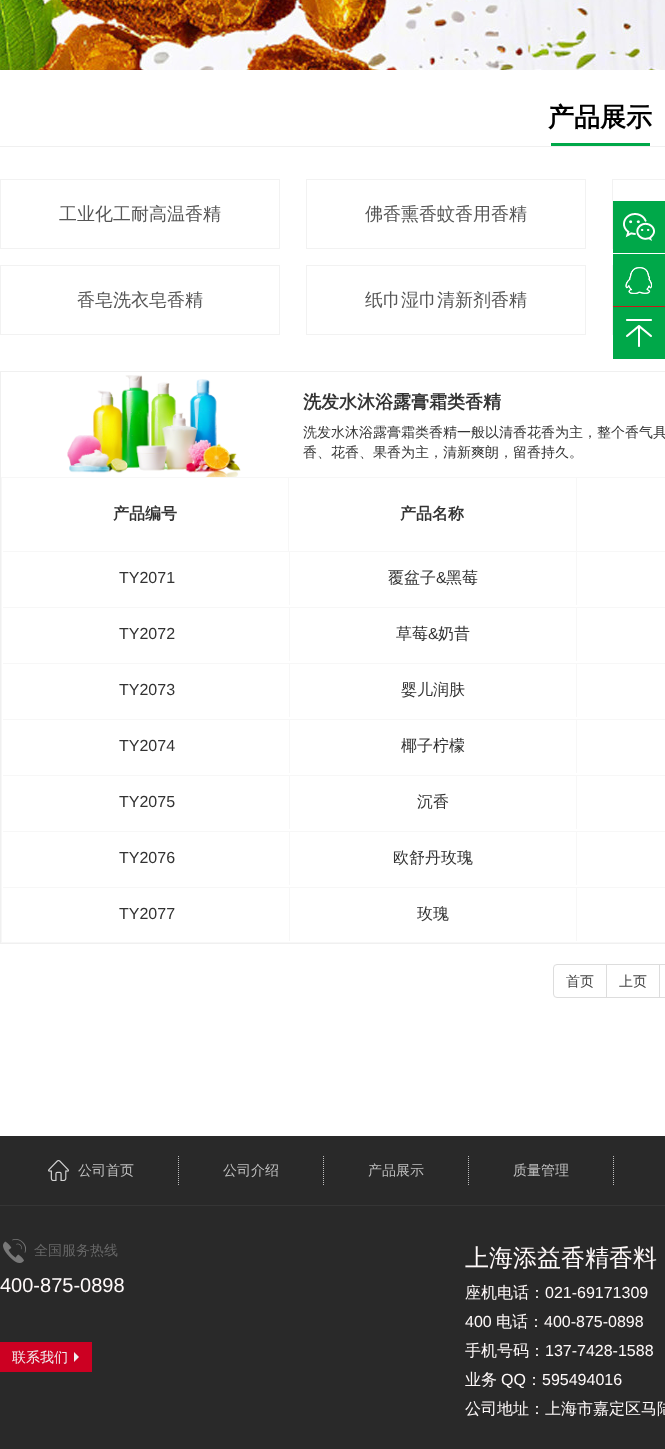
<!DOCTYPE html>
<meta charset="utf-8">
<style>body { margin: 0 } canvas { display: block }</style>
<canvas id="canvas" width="665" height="1449"></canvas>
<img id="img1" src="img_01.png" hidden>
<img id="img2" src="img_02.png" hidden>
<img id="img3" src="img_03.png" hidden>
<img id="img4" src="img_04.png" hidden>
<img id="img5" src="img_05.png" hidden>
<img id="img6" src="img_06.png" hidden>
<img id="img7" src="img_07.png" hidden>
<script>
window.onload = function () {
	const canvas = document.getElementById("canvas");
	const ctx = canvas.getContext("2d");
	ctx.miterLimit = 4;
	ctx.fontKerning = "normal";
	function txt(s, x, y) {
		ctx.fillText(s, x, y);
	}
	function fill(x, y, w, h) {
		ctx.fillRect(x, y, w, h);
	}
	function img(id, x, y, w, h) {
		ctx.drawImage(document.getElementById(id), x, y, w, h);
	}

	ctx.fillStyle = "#FFFFFF";
	fill(0, 0, 665, 1449);
	img("img1", 0, 0, 665, 70);
	ctx.fillStyle = "#F0F0F0";
	fill(0, 146, 665, 1);
	ctx.fillStyle = "#00A849";
	fill(551, 143, 99, 3);
	ctx.strokeStyle = "#F2F2F2";
	ctx.strokeRect(0.5, 179.5, 279, 69);
	ctx.strokeRect(306.5, 179.5, 279, 69);
	ctx.strokeRect(612.5, 179.5, 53, 69);
	ctx.strokeRect(0.5, 265.5, 279, 69);
	ctx.strokeRect(306.5, 265.5, 279, 69);
	ctx.strokeRect(612.5, 265.5, 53, 69);
	ctx.fillStyle = "#CA1919";
	fill(613, 306, 52, 1);
	ctx.strokeStyle = "#F0F0F0";
	ctx.strokeRect(0.5, 371.5, 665, 572);
	img("img2", 67, 375, 174, 102);
	ctx.fillStyle = "#F7F7F7";
	fill(1, 477, 664, 1);
	fill(1, 942, 664, 1);
	fill(1, 477, 1, 466);
	fill(576, 477, 1, 74);
	fill(288, 477, 1, 74);
	fill(3, 551, 662, 1);
	fill(576, 551, 1, 54);
	fill(289, 551, 1, 54);
	fill(3, 607, 662, 1);
	fill(576, 607, 1, 54);
	fill(289, 607, 1, 54);
	fill(3, 663, 662, 1);
	fill(576, 663, 1, 54);
	fill(289, 663, 1, 54);
	fill(3, 719, 662, 1);
	fill(576, 719, 1, 54);
	fill(289, 719, 1, 54);
	fill(3, 775, 662, 1);
	fill(576, 775, 1, 54);
	fill(289, 775, 1, 54);
	fill(3, 831, 662, 1);
	fill(576, 831, 1, 54);
	fill(289, 831, 1, 54);
	fill(3, 887, 662, 1);
	fill(576, 887, 1, 54);
	fill(289, 887, 1, 54);
	ctx.beginPath();
	ctx.roundRect(553.5, 964.5, 53, 33, [3.5, 0, 0, 3.5]);
	ctx.strokeStyle = "#DDDDDD";
	ctx.stroke();
	ctx.strokeRect(606.5, 964.5, 53, 33);
	ctx.strokeRect(659.5, 964.5, 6, 33);
	ctx.fillStyle = "#00A849";
	fill(613, 201, 52, 52);
	img("img3", 623, 213, 32, 28);
	fill(613, 254, 52, 52);
	img("img4", 625, 267, 27, 27);
	fill(613, 307, 52, 52);
	img("img5", 626, 319, 26, 28);
	ctx.fillStyle = "#292929";
	fill(0, 1136, 665, 313);
	ctx.fillStyle = "#353535";
	fill(0, 1205, 665, 1);
	ctx.beginPath();
	ctx.moveTo(178.5, 1156);
	ctx.lineTo(178.5, 1185);
	ctx.strokeStyle = "#BFBFBF";
	ctx.setLineDash([1, 1]);
	ctx.stroke();
	img("img6", 48, 1160, 21, 21);
	ctx.beginPath();
	ctx.moveTo(323.5, 1156);
	ctx.lineTo(323.5, 1185);
	ctx.stroke();
	ctx.beginPath();
	ctx.moveTo(468.5, 1156);
	ctx.lineTo(468.5, 1185);
	ctx.stroke();
	ctx.beginPath();
	ctx.moveTo(613.5, 1156);
	ctx.lineTo(613.5, 1185);
	ctx.stroke();
	img("img7", 3, 1239, 23, 24);
	ctx.fillStyle = "#CC0022";
	fill(0, 1342, 92, 30);
	ctx.fillStyle = "#F0F0F0";
	ctx.beginPath();
	ctx.moveTo(74, 1362);
	ctx.lineTo(74, 1352);
	ctx.lineTo(79, 1357);
	ctx.closePath();
	ctx.fill();
	ctx.font = "bold 26px WenQuanYi Zen Hei";
	ctx.fillStyle = "#000000";
	txt("产品展示", 548, 126);
	ctx.font = "500 18px WenQuanYi Zen Hei";
	ctx.fillStyle = "#555555";
	txt("工业化工耐高温香精", 59, 220);
	txt("佛香熏香蚊香用香精", 365, 220);
	txt("香皂洗衣皂香精", 77, 306);
	txt("纸巾湿巾清新剂香精", 365, 306);
	ctx.font = "bold 18px WenQuanYi Zen Hei";
	ctx.fillStyle = "#333333";
	txt("洗发水沐浴露膏霜类香精", 303, 408);
	ctx.font = "500 14px WenQuanYi Zen Hei";
	txt("洗发水沐浴露膏霜类香精一般以清香花香为主，整个香气具", 303, 437);
	txt("香、花香、果香为主，清新爽朗，留香持久。", 303, 457);
	ctx.font = "bold 16px WenQuanYi Zen Hei";
	txt("产品编号", 113, 519);
	txt("产品名称", 400, 519);
	ctx.font = "16px Liberation Sans";
	txt("TY2071", 119, 583);
	ctx.font = "500 16px WenQuanYi Zen Hei";
	txt("覆盆子", 388, 583);
	ctx.font = "16px Liberation Sans";
	txt("&", 436, 583);
	ctx.font = "500 16px WenQuanYi Zen Hei";
	txt("黑莓", 446, 583);
	ctx.font = "16px Liberation Sans";
	txt("TY2072", 119, 639);
	ctx.font = "500 16px WenQuanYi Zen Hei";
	txt("草莓", 396, 639);
	ctx.font = "16px Liberation Sans";
	txt("&", 428, 639);
	ctx.font = "500 16px WenQuanYi Zen Hei";
	txt("奶昔", 438, 639);
	ctx.font = "16px Liberation Sans";
	txt("TY2073", 119, 695);
	ctx.font = "500 16px WenQuanYi Zen Hei";
	txt("婴儿润肤", 401, 695);
	ctx.font = "16px Liberation Sans";
	txt("TY2074", 119, 751);
	ctx.font = "500 16px WenQuanYi Zen Hei";
	txt("椰子柠檬", 401, 751);
	ctx.font = "16px Liberation Sans";
	txt("TY2075", 119, 807);
	ctx.font = "500 16px WenQuanYi Zen Hei";
	txt("沉香", 417, 807);
	ctx.font = "16px Liberation Sans";
	txt("TY2076", 119, 863);
	ctx.font = "500 16px WenQuanYi Zen Hei";
	txt("欧舒丹玫瑰", 393, 863);
	ctx.font = "16px Liberation Sans";
	txt("TY2077", 119, 919);
	ctx.font = "500 16px WenQuanYi Zen Hei";
	txt("玫瑰", 417, 919);
	ctx.font = "500 14px WenQuanYi Zen Hei";
	ctx.fillStyle = "#444444";
	txt("首页", 566, 986);
	txt("上页", 619, 986);
	ctx.fillStyle = "#BFBFBF";
	txt("公司首页", 78, 1175);
	txt("公司介绍", 223, 1175);
	txt("产品展示", 368, 1175);
	txt("质量管理", 513, 1175);
	ctx.fillStyle = "#666666";
	txt("全国服务热线", 34, 1255);
	ctx.font = "20px Liberation Sans";
	ctx.fillStyle = "#FFFAFA";
	txt("400-875-0898", 0, 1292);
	ctx.font = "500 14px WenQuanYi Zen Hei";
	ctx.fillStyle = "#F0F0F0";
	txt("联系我们", 12, 1362);
	ctx.font = "500 24px WenQuanYi Zen Hei";
	ctx.fillStyle = "#FFFAFA";
	txt("上海添益香精香料", 465, 1266);
	ctx.font = "500 16px WenQuanYi Zen Hei";
	txt("座机电话：", 465, 1298);
	ctx.font = "16px Liberation Sans";
	txt("021-69171309", 545, 1298);
	txt("400", 465, 1327);
	ctx.font = "500 16px WenQuanYi Zen Hei";
	txt("电话：", 496, 1327);
	ctx.font = "16px Liberation Sans";
	txt("400-875-0898", 544, 1327);
	ctx.font = "500 16px WenQuanYi Zen Hei";
	txt("手机号码：", 465, 1356);
	ctx.font = "16px Liberation Sans";
	txt("137-7428-1588", 545, 1356);
	ctx.font = "500 16px WenQuanYi Zen Hei";
	txt("业务", 465, 1385);
	ctx.font = "16px Liberation Sans";
	txt("QQ", 501, 1385);
	ctx.font = "500 16px WenQuanYi Zen Hei";
	txt("：", 526, 1385);
	ctx.font = "16px Liberation Sans";
	txt("595494016", 542, 1385);
	ctx.font = "500 16px WenQuanYi Zen Hei";
	txt("公司地址：上海市嘉定区马陆", 465, 1414);
};
</script>
